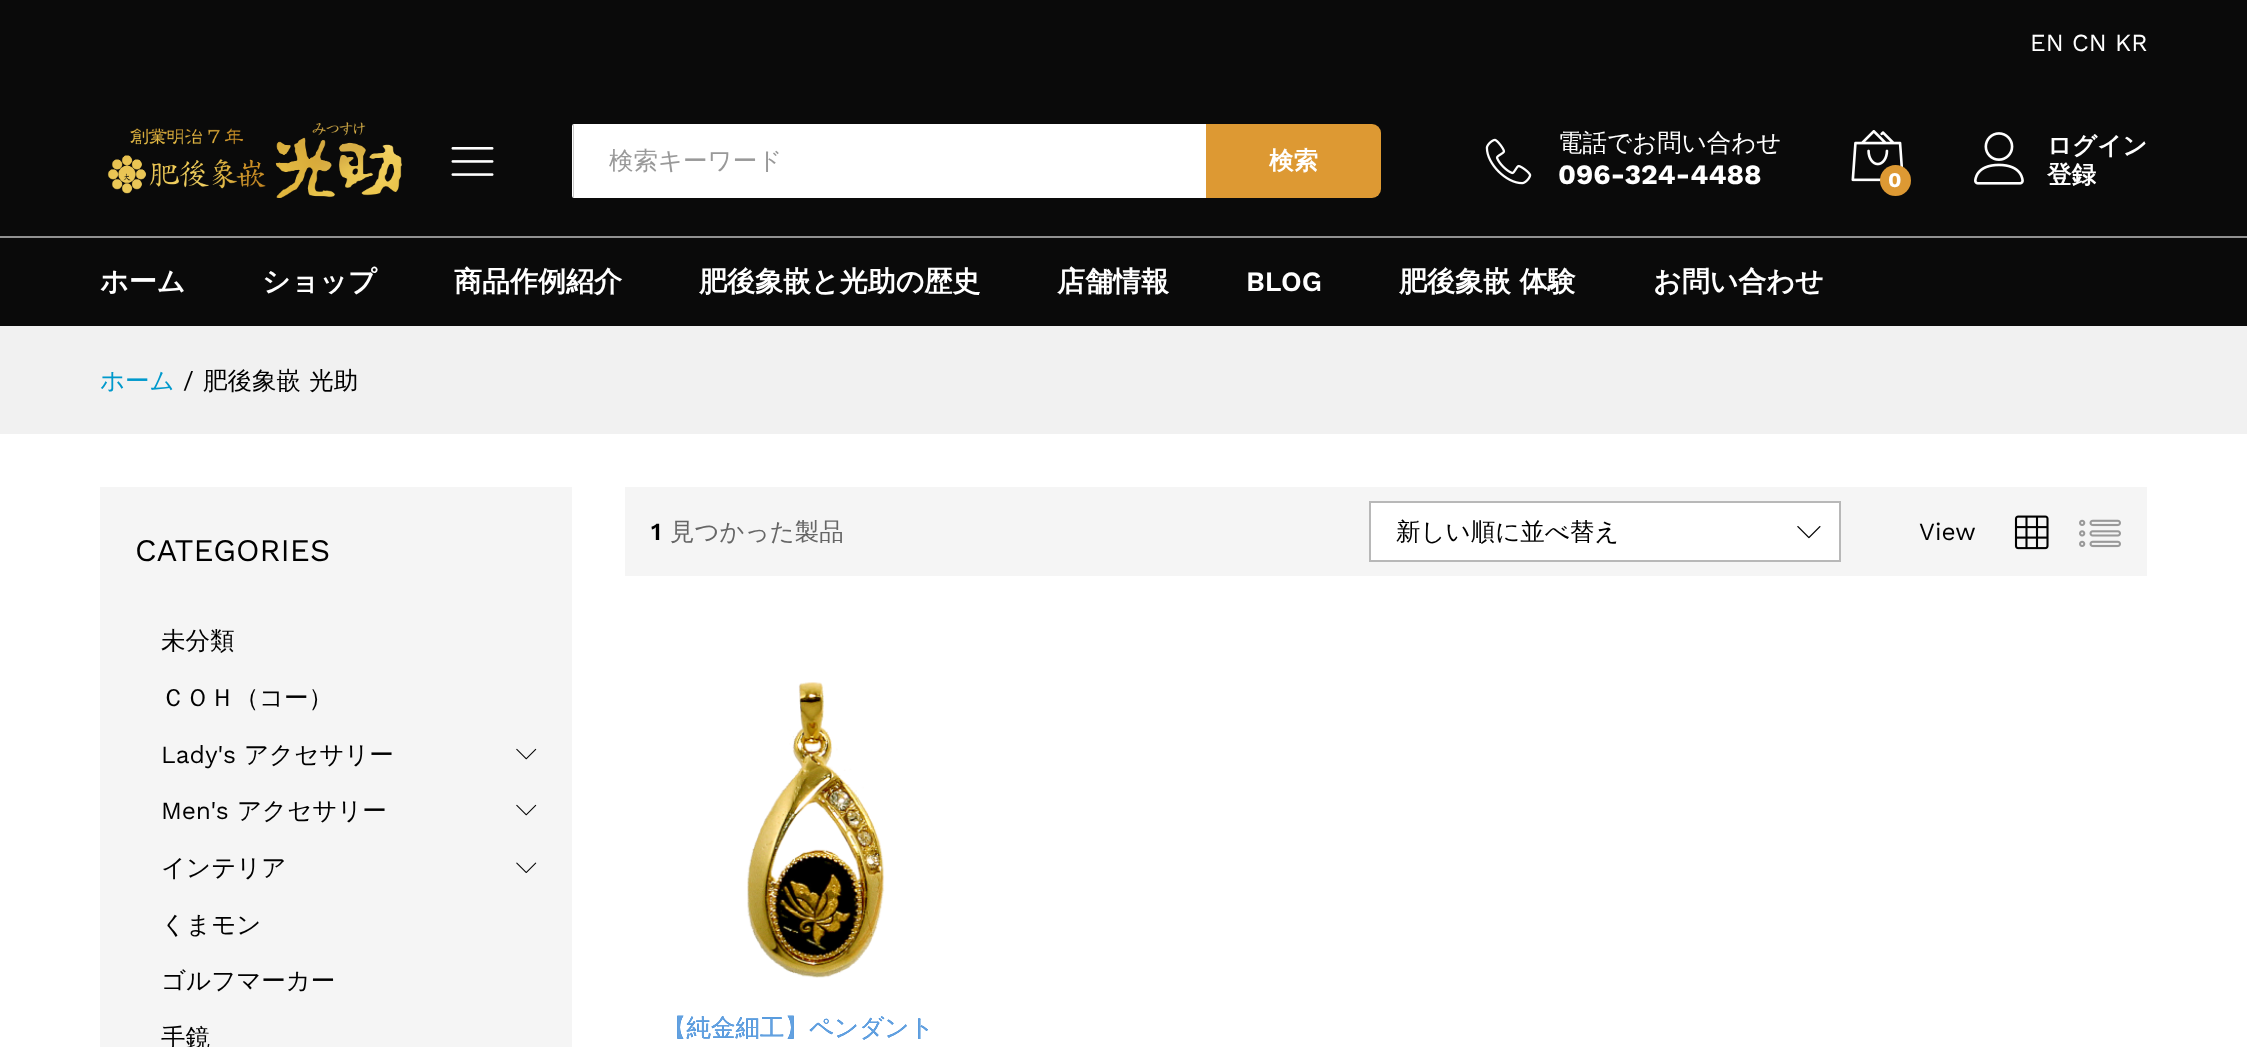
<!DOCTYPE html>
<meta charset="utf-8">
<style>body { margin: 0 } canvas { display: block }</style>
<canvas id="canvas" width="2247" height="1047"></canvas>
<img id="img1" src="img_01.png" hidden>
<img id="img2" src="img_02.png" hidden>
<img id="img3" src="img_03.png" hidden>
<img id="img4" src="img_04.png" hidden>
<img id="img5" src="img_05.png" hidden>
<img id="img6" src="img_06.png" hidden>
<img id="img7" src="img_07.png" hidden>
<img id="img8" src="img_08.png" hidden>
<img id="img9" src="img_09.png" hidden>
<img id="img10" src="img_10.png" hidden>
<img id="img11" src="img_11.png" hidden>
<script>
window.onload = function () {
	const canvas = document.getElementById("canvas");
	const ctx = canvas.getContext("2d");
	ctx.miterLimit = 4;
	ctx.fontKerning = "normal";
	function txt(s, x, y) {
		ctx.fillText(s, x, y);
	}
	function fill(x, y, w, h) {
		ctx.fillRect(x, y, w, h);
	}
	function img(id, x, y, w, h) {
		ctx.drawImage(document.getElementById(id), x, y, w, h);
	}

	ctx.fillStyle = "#FFFFFF";
	fill(0, 0, 2247, 1047);
	ctx.fillStyle = "#0A0A0A";
	fill(0, 0, 2247, 326);
	img("img1", 107, 122, 295, 76);
	img("img2", 451, 147, 43, 29);
	ctx.fillStyle = "#FFFFFF";
	ctx.beginPath();
	ctx.roundRect(572, 124, 2, 74, [2, 0, 0, 2]);
	ctx.fill();
	ctx.fillStyle = "#CCCCCC";
	ctx.beginPath();
	ctx.moveTo(574, 124);
	ctx.lineTo(573, 125);
	ctx.lineTo(573, 197);
	ctx.lineTo(574, 198);
	ctx.closePath();
	ctx.fill();
	ctx.fillStyle = "#FFFFFF";
	fill(574, 124, 632, 74);
	ctx.fillStyle = "#DD9933";
	ctx.beginPath();
	ctx.roundRect(1206, 124, 175, 74, [0, 9, 9, 0]);
	ctx.fill();
	img("img3", 1485, 138, 47, 47);
	img("img4", 1851, 130, 53, 52);
	ctx.beginPath();
	ctx.arc(1895.5, 180.5, 15.5, 0, Math.PI * 2);
	ctx.fill();
	img("img5", 1974, 132, 50, 53);
	ctx.fillStyle = "#919191";
	fill(0, 236, 2247, 2);
	ctx.fillStyle = "#F1F1F1";
	fill(0, 326, 2247, 108);
	ctx.fillStyle = "#F5F5F5";
	fill(100, 487, 472, 560);
	img("img6", 516, 748, 21, 12);
	img("img6", 516, 804, 21, 12);
	img("img7", 516, 862, 21, 11);
	fill(625, 487, 1522, 89);
	ctx.fillStyle = "#FFFFFF";
	ctx.beginPath();
	ctx.rect(1370, 502, 470, 59);
	ctx.fill();
	ctx.strokeStyle = "#B8B8B8";
	ctx.lineWidth = 2;
	ctx.stroke();
	img("img8", 1797, 526, 24, 13);
	img("img9", 2014, 515, 35, 35);
	img("img10", 2079, 519, 42, 29);
	img("img11", 747, 682, 138, 296);
	ctx.font = "24.5px Work Sans";
	txt("EN CN KR", 2030, 51);
	ctx.font = "500 24.5px WenQuanYi Zen Hei";
	ctx.fillStyle = "#999999";
	txt("検索キーワード", 609, 169);
	ctx.font = "bold 24.5px WenQuanYi Zen Hei";
	ctx.fillStyle = "#FFFFFF";
	txt("検索", 1269, 169);
	ctx.font = "500 24.5px WenQuanYi Zen Hei";
	txt("電話でお問い合わせ", 1558, 151);
	ctx.font = "bold 28px Work Sans";
	txt("096-324-4488", 1558, 184);
	ctx.font = "bold 21px Work Sans";
	txt("0", 1888, 187);
	ctx.font = "bold 24.5px WenQuanYi Zen Hei";
	txt("ログイン", 2047, 154);
	txt("登録", 2047, 183);
	ctx.font = "bold 28px WenQuanYi Zen Hei";
	txt("ホーム", 100, 291);
	txt("ショップ", 262, 291);
	txt("商品作例紹介", 454, 291);
	txt("肥後象嵌と光助の歴史", 699, 291);
	txt("店舗情報", 1057, 291);
	ctx.font = "600 28px Work Sans";
	txt("BLOG", 1246, 291);
	ctx.font = "bold 28px WenQuanYi Zen Hei";
	txt("肥後象嵌 体験", 1399, 291);
	txt("お問い合わせ", 1653, 291);
	ctx.font = "500 24.5px WenQuanYi Zen Hei";
	ctx.fillStyle = "#0099CC";
	txt("ホーム", 100, 389);
	ctx.font = "24.5px Work Sans";
	ctx.fillStyle = "#000000";
	txt("/", 183, 389);
	ctx.wordSpacing = "1px";
	ctx.font = "500 24.5px WenQuanYi Zen Hei";
	txt("肥後象嵌 光助", 203, 389);
	ctx.wordSpacing = "0px";
	ctx.font = "31.5px Work Sans";
	txt("CATEGORIES", 135, 561);
	ctx.font = "500 24.5px WenQuanYi Zen Hei";
	txt("未分類", 161, 649);
	txt("ＣＯＨ（コー）", 161, 706);
	ctx.font = "24.5px Work Sans";
	txt("Lady's", 161, 763);
	ctx.font = "500 24.5px WenQuanYi Zen Hei";
	txt("アクセサリー", 244, 763);
	ctx.font = "24.5px Work Sans";
	txt("Men's", 161, 819);
	ctx.font = "500 24.5px WenQuanYi Zen Hei";
	txt("アクセサリー", 237, 819);
	txt("インテリア", 161, 876);
	txt("くまモン", 161, 933);
	txt("ゴルフマーカー", 161, 989);
	txt("手鏡", 161, 1046);
	ctx.font = "600 24.5px Work Sans";
	txt("1", 651, 540);
	ctx.font = "500 24.5px WenQuanYi Zen Hei";
	ctx.fillStyle = "#666666";
	txt("見つかった製品", 670, 540);
	ctx.fillStyle = "#000000";
	txt("新しい順に並べ替え", 1396, 540);
	ctx.font = "24.5px Work Sans";
	txt("View", 1919, 540);
	ctx.font = "500 24.5px WenQuanYi Zen Hei";
	ctx.fillStyle = "#0066CC";
	txt("【純金細工】ペンダント", 662, 1036);
	ctx.fillStyle = "#63A1E0";
	txt("【純金細工】ペンダント", 662, 1036);
};
</script>
